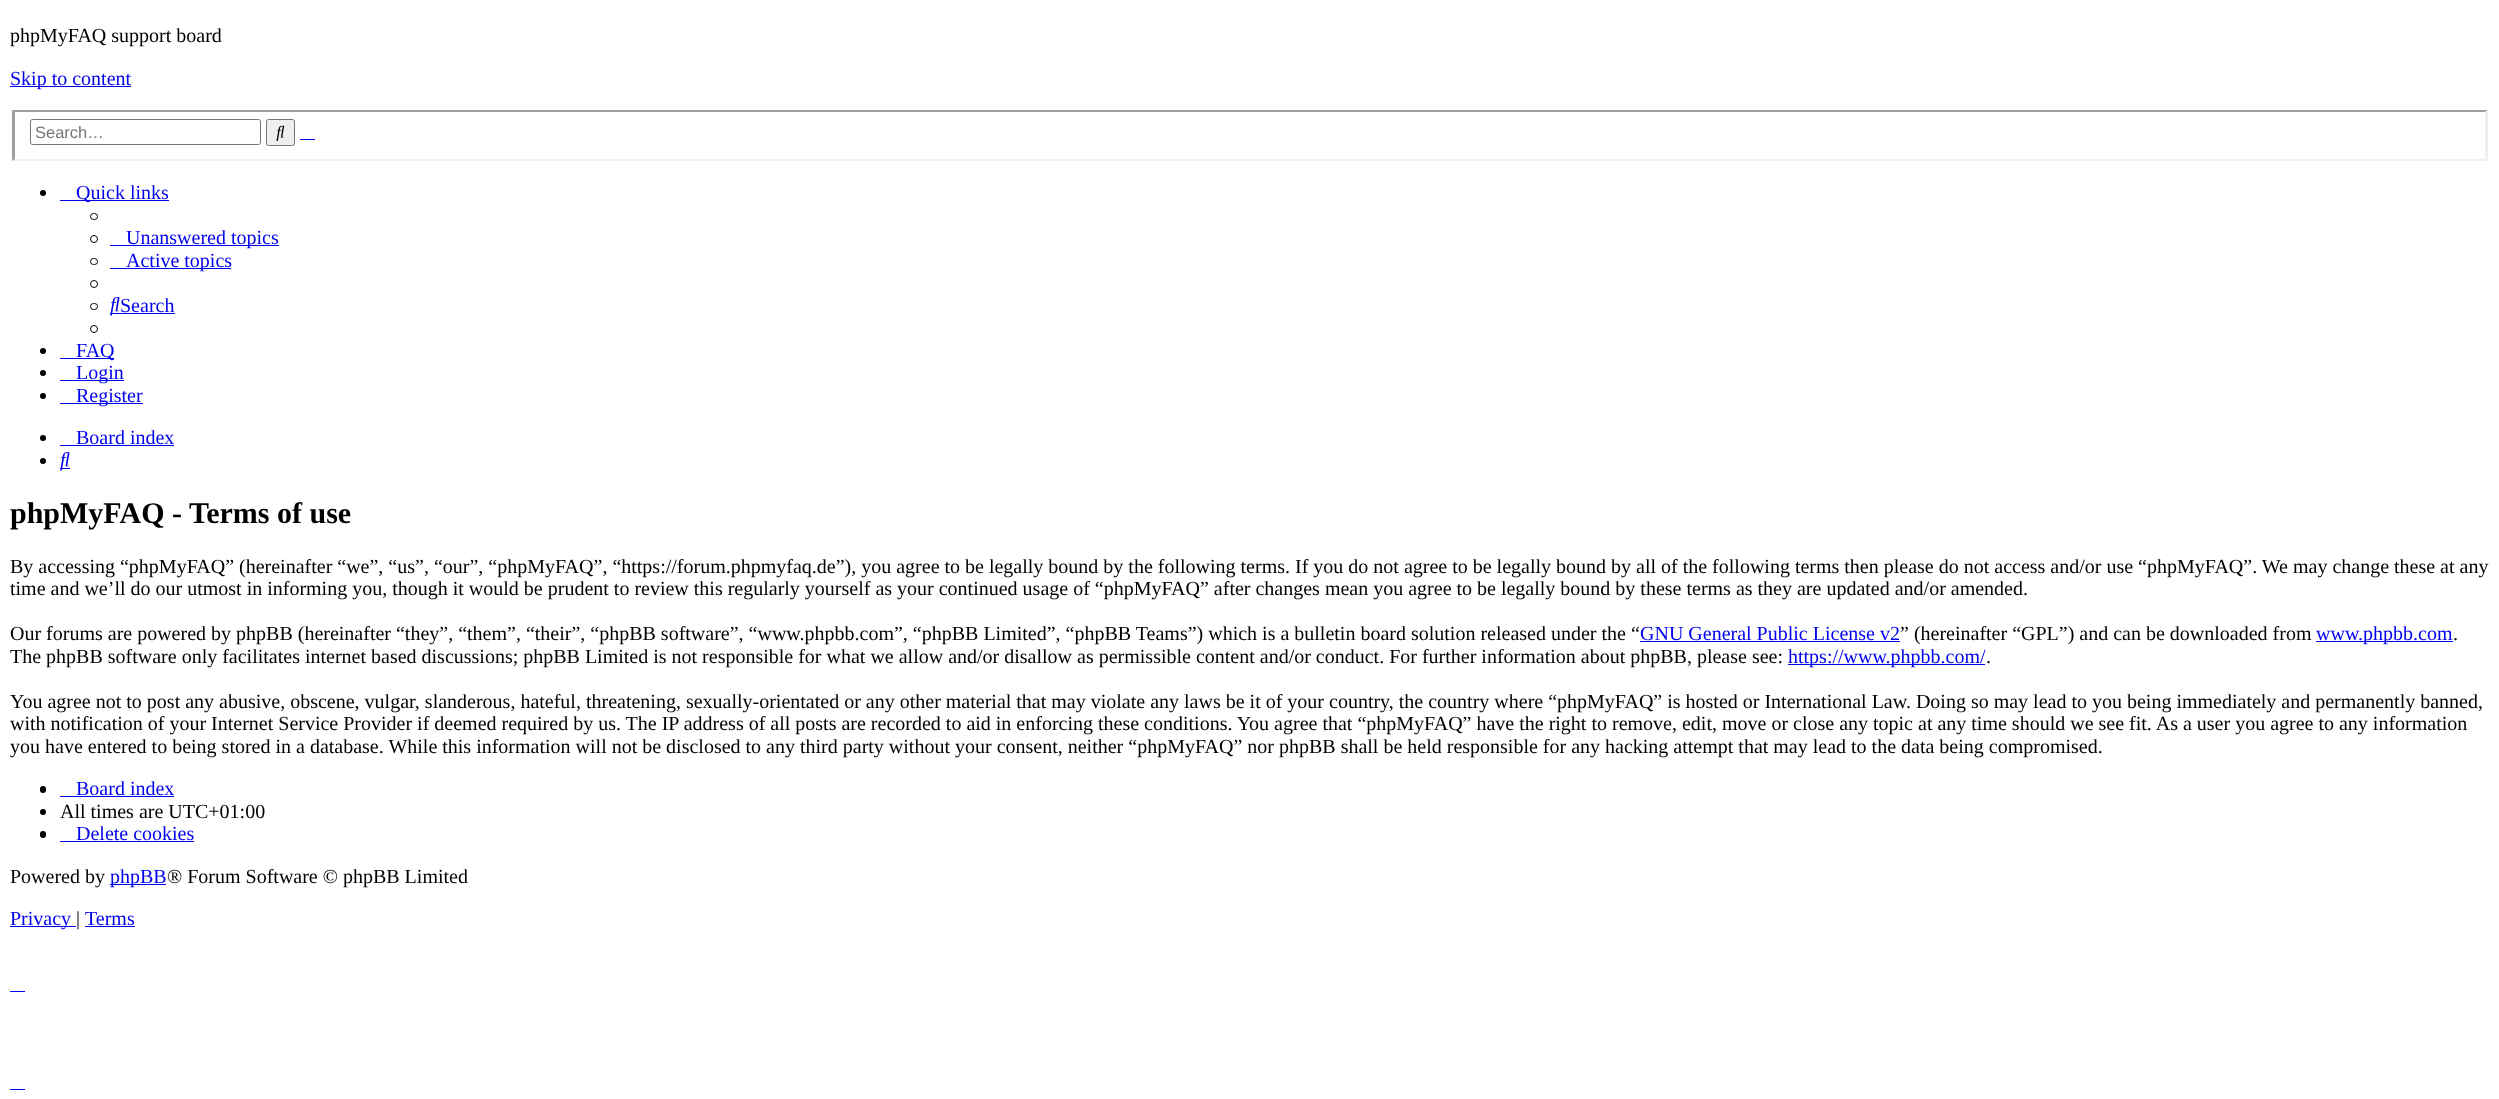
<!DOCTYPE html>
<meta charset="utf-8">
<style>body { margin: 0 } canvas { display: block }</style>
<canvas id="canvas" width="2499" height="1099"></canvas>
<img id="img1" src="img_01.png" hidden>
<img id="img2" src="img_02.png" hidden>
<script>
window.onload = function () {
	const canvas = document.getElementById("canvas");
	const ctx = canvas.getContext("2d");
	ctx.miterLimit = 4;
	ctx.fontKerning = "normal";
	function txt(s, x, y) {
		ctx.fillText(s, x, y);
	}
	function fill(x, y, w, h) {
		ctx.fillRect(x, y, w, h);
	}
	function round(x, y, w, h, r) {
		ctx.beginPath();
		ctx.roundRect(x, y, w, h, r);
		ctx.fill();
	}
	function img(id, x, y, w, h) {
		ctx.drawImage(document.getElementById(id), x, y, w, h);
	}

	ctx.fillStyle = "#FFFFFF";
	fill(0, 0, 2499, 1099);
	ctx.fillStyle = "#0000EE";
	fill(10, 86, 121, 1);
	ctx.fillStyle = "#9F9F9F";
	ctx.beginPath();
	ctx.moveTo(12, 110);
	ctx.lineTo(2488, 110);
	ctx.lineTo(2485, 112);
	ctx.lineTo(15, 112);
	ctx.closePath();
	ctx.fill();
	ctx.fillStyle = "#EFEFEF";
	ctx.beginPath();
	ctx.moveTo(2488, 110);
	ctx.lineTo(2488, 161);
	ctx.lineTo(2485, 159);
	ctx.lineTo(2485, 112);
	ctx.closePath();
	ctx.fill();
	ctx.beginPath();
	ctx.moveTo(2488, 161);
	ctx.lineTo(12, 161);
	ctx.lineTo(15, 159);
	ctx.lineTo(2485, 159);
	ctx.closePath();
	ctx.fill();
	ctx.fillStyle = "#9F9F9F";
	ctx.beginPath();
	ctx.moveTo(12, 161);
	ctx.lineTo(12, 110);
	ctx.lineTo(15, 112);
	ctx.lineTo(15, 159);
	ctx.closePath();
	ctx.fill();
	ctx.beginPath();
	ctx.roundRect(30.5, 119.5, 230, 25, 2);
	ctx.strokeStyle = "#767676";
	ctx.stroke();
	ctx.fillStyle = "#EFEFEF";
	ctx.beginPath();
	ctx.roundRect(266.5, 119.5, 28, 26, 2);
	ctx.fill();
	ctx.stroke();
	img("img1", 276, 125, 9, 17);
	ctx.fillStyle = "#0000EE";
	fill(300, 139, 15, 1);
	ctx.fillStyle = "#000000";
	ctx.beginPath();
	ctx.arc(43, 193, 3, 0, Math.PI * 2);
	ctx.fill();
	ctx.fillStyle = "#0000EE";
	fill(60, 200, 109, 1);
	ctx.beginPath();
	ctx.roundRect(90.5, 213.5, 7, 6, 3);
	ctx.strokeStyle = "#000000";
	ctx.stroke();
	ctx.beginPath();
	ctx.arc(94, 239, 3.5, 0, Math.PI * 2);
	ctx.stroke();
	fill(110, 245, 169, 1);
	ctx.beginPath();
	ctx.roundRect(90.5, 258.5, 7, 6, 3);
	ctx.stroke();
	fill(110, 268, 121, 1);
	ctx.beginPath();
	ctx.arc(94, 284, 3.5, 0, Math.PI * 2);
	ctx.stroke();
	ctx.beginPath();
	ctx.roundRect(90.5, 303.5, 7, 6, 3);
	ctx.stroke();
	fill(110, 313, 65, 1);
	img("img2", 110, 297, 10, 19);
	ctx.beginPath();
	ctx.arc(94, 329, 3.5, 0, Math.PI * 2);
	ctx.stroke();
	ctx.fillStyle = "#000000";
	ctx.beginPath();
	ctx.arc(43, 351, 3, 0, Math.PI * 2);
	ctx.fill();
	ctx.fillStyle = "#0000EE";
	fill(60, 358, 54, 1);
	ctx.fillStyle = "#000000";
	ctx.beginPath();
	ctx.arc(43, 373, 3, 0, Math.PI * 2);
	ctx.fill();
	ctx.fillStyle = "#0000EE";
	fill(60, 380, 64, 1);
	ctx.fillStyle = "#000000";
	ctx.beginPath();
	ctx.arc(43, 396, 3, 0, Math.PI * 2);
	ctx.fill();
	ctx.fillStyle = "#0000EE";
	fill(60, 403, 83, 1);
	ctx.fillStyle = "#000000";
	ctx.beginPath();
	ctx.arc(43, 438, 3, 0, Math.PI * 2);
	ctx.fill();
	ctx.fillStyle = "#0000EE";
	fill(60, 445, 114, 1);
	ctx.fillStyle = "#000000";
	ctx.beginPath();
	ctx.arc(43, 461, 3, 0, Math.PI * 2);
	ctx.fill();
	ctx.fillStyle = "#0000EE";
	fill(60, 468, 10, 1);
	img("img2", 60, 452, 10, 19);
	fill(1640, 641, 260, 1);
	fill(2316, 641, 137, 1);
	fill(1788, 664, 197, 1);
	ctx.fillStyle = "#000000";
	round(40, 786, 6, 7, 3);
	ctx.fillStyle = "#0000EE";
	fill(60, 796, 114, 1);
	ctx.fillStyle = "#000000";
	ctx.beginPath();
	ctx.arc(43, 812, 3, 0, Math.PI * 2);
	ctx.fill();
	round(40, 831, 6, 7, 3);
	ctx.fillStyle = "#0000EE";
	fill(60, 841, 134, 1);
	fill(110, 884, 56, 1);
	fill(10, 926, 61, 1);
	fill(71, 926, 5, 1);
	fill(85, 926, 50, 1);
	fill(10, 991, 15, 1);
	fill(10, 1089, 15, 1);
	ctx.font = "20px Liberation Serif";
	ctx.fillStyle = "#000000";
	txt("phpMyFAQ support board", 10, 42);
	ctx.fillStyle = "#0000EE";
	txt("Skip to content", 10, 85);
	ctx.font = "16.5px Liberation Sans";
	ctx.fillStyle = "#757575";
	txt("Search…", 35, 138);
	ctx.font = "20px Liberation Serif";
	ctx.fillStyle = "#0000EE";
	txt("Quick links", 76, 199);
	txt("Unanswered topics", 126, 244);
	txt("Active topics", 126, 267);
	txt("Search", 120, 312);
	txt("FAQ", 76, 357);
	txt("Login", 76, 379);
	txt("Register", 76, 402);
	txt("Board index", 76, 444);
	ctx.font = "bold 30px Liberation Serif";
	ctx.fillStyle = "#000000";
	txt("phpMyFAQ - Terms of use", 10, 523);
	ctx.font = "20px Liberation Serif";
	txt("By accessing “phpMyFAQ” (hereinafter “we”, “us”, “our”, “phpMyFAQ”, “https://forum.phpmyfaq.de”), you agree to be legally bound by the following terms. If you do not agree to be legally bound by all of the following terms then please do not access and/or use “phpMyFAQ”. We may change these at any", 10, 573);
	txt("time and we’ll do our utmost in informing you, though it would be prudent to review this regularly yourself as your continued usage of “phpMyFAQ” after changes mean you agree to be legally bound by these terms as they are updated and/or amended.", 10, 595);
	txt("Our forums are powered by phpBB (hereinafter “they”, “them”, “their”, “phpBB software”, “www.phpbb.com”, “phpBB Limited”, “phpBB Teams”) which is a bulletin board solution released under the “", 10, 640);
	ctx.fillStyle = "#0000EE";
	txt("GNU General Public License v2", 1640, 640);
	ctx.fillStyle = "#000000";
	txt("” (hereinafter “GPL”) and can be downloaded from", 1900, 640);
	ctx.fillStyle = "#0000EE";
	txt("www.phpbb.com", 2316, 640);
	ctx.fillStyle = "#000000";
	txt(".", 2453, 640);
	txt("The phpBB software only facilitates internet based discussions; phpBB Limited is not responsible for what we allow and/or disallow as permissible content and/or conduct. For further information about phpBB, please see:", 10, 663);
	ctx.fillStyle = "#0000EE";
	txt("https://www.phpbb.com/", 1788, 663);
	ctx.fillStyle = "#000000";
	txt(".", 1986, 663);
	txt("You agree not to post any abusive, obscene, vulgar, slanderous, hateful, threatening, sexually-orientated or any other material that may violate any laws be it of your country, the country where “phpMyFAQ” is hosted or International Law. Doing so may lead to you being immediately and permanently banned,", 10, 708);
	txt("with notification of your Internet Service Provider if deemed required by us. The IP address of all posts are recorded to aid in enforcing these conditions. You agree that “phpMyFAQ” have the right to remove, edit, move or close any topic at any time should we see fit. As a user you agree to any information", 10, 730);
	txt("you have entered to being stored in a database. While this information will not be disclosed to any third party without your consent, neither “phpMyFAQ” nor phpBB shall be held responsible for any hacking attempt that may lead to the data being compromised.", 10, 753);
	ctx.fillStyle = "#0000EE";
	txt("Board index", 76, 795);
	ctx.fillStyle = "#000000";
	txt("All times are UTC+01:00", 60, 818);
	ctx.fillStyle = "#0000EE";
	txt("Delete cookies", 76, 840);
	ctx.fillStyle = "#000000";
	txt("Powered by", 10, 883);
	ctx.fillStyle = "#0000EE";
	txt("phpBB", 110, 883);
	ctx.fillStyle = "#000000";
	txt("® Forum Software © phpBB Limited", 167, 883);
	ctx.fillStyle = "#0000EE";
	txt("Privacy", 10, 925);
	ctx.fillStyle = "#000000";
	txt("|", 76, 925);
	ctx.fillStyle = "#0000EE";
	txt("Terms", 85, 925);
};
</script>
